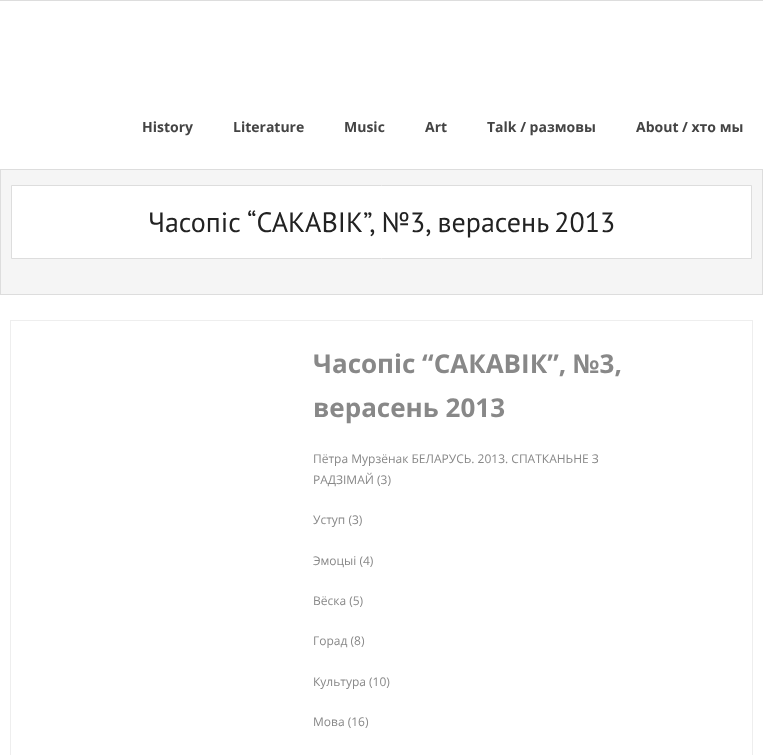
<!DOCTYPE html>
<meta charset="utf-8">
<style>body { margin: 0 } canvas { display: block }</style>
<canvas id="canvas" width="763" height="755"></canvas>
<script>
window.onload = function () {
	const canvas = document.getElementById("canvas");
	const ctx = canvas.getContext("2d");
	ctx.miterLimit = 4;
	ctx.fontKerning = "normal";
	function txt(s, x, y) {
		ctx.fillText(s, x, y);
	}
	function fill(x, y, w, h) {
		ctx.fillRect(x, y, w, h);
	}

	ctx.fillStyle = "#FFFFFF";
	fill(0, 0, 763, 755);
	ctx.fillStyle = "#DDDDDD";
	fill(0, 169, 763, 1);
	fill(0, 0, 763, 1);
	ctx.fillStyle = "#F5F5F5";
	fill(1, 170, 761, 124);
	ctx.fillStyle = "#DDDDDD";
	fill(762, 170, 1, 125);
	fill(0, 294, 763, 1);
	fill(0, 170, 1, 125);
	ctx.fillStyle = "#FFFFFF";
	ctx.beginPath();
	ctx.rect(11.5, 185.5, 740, 73);
	ctx.fill();
	ctx.strokeStyle = "#DDDDDD";
	ctx.stroke();
	ctx.strokeStyle = "#EEEEEE";
	ctx.strokeRect(10.5, 320.5, 742, 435);
	ctx.font = "bold 14px Open Sans";
	ctx.fillStyle = "#444444";
	txt("History", 142, 132);
	txt("Literature", 233, 132);
	txt("Music", 344, 132);
	txt("Art", 425, 132);
	txt("Talk / размовы", 487, 132);
	txt("About / хто мы", 636, 132);
	ctx.wordSpacing = "-1.5px";
	ctx.font = "28px PT Sans";
	ctx.fillStyle = "#222222";
	txt("Часопіс “САКАВІК”, №3, верасень 2013", 148, 232);
	ctx.wordSpacing = "0px";
	ctx.font = "bold 26px Open Sans";
	ctx.fillStyle = "#888888";
	txt("Часопіс “САКАВІК”, №3,", 313, 373);
	txt("верасень 2013", 313, 417);
	ctx.font = "12px Open Sans";
	txt("Пётра Мурзёнак БЕЛАРУСЬ. 2013. СПАТКАНЬНЕ З", 313, 463);
	txt("РАДЗІМАЙ (3)", 313, 484);
	txt("Уступ (3)", 313, 524);
	txt("Эмоцыі (4)", 313, 565);
	txt("Вёска (5)", 313, 605);
	txt("Горад (8)", 313, 645);
	txt("Культура (10)", 313, 686);
	txt("Мова (16)", 313, 726);
};
</script>
